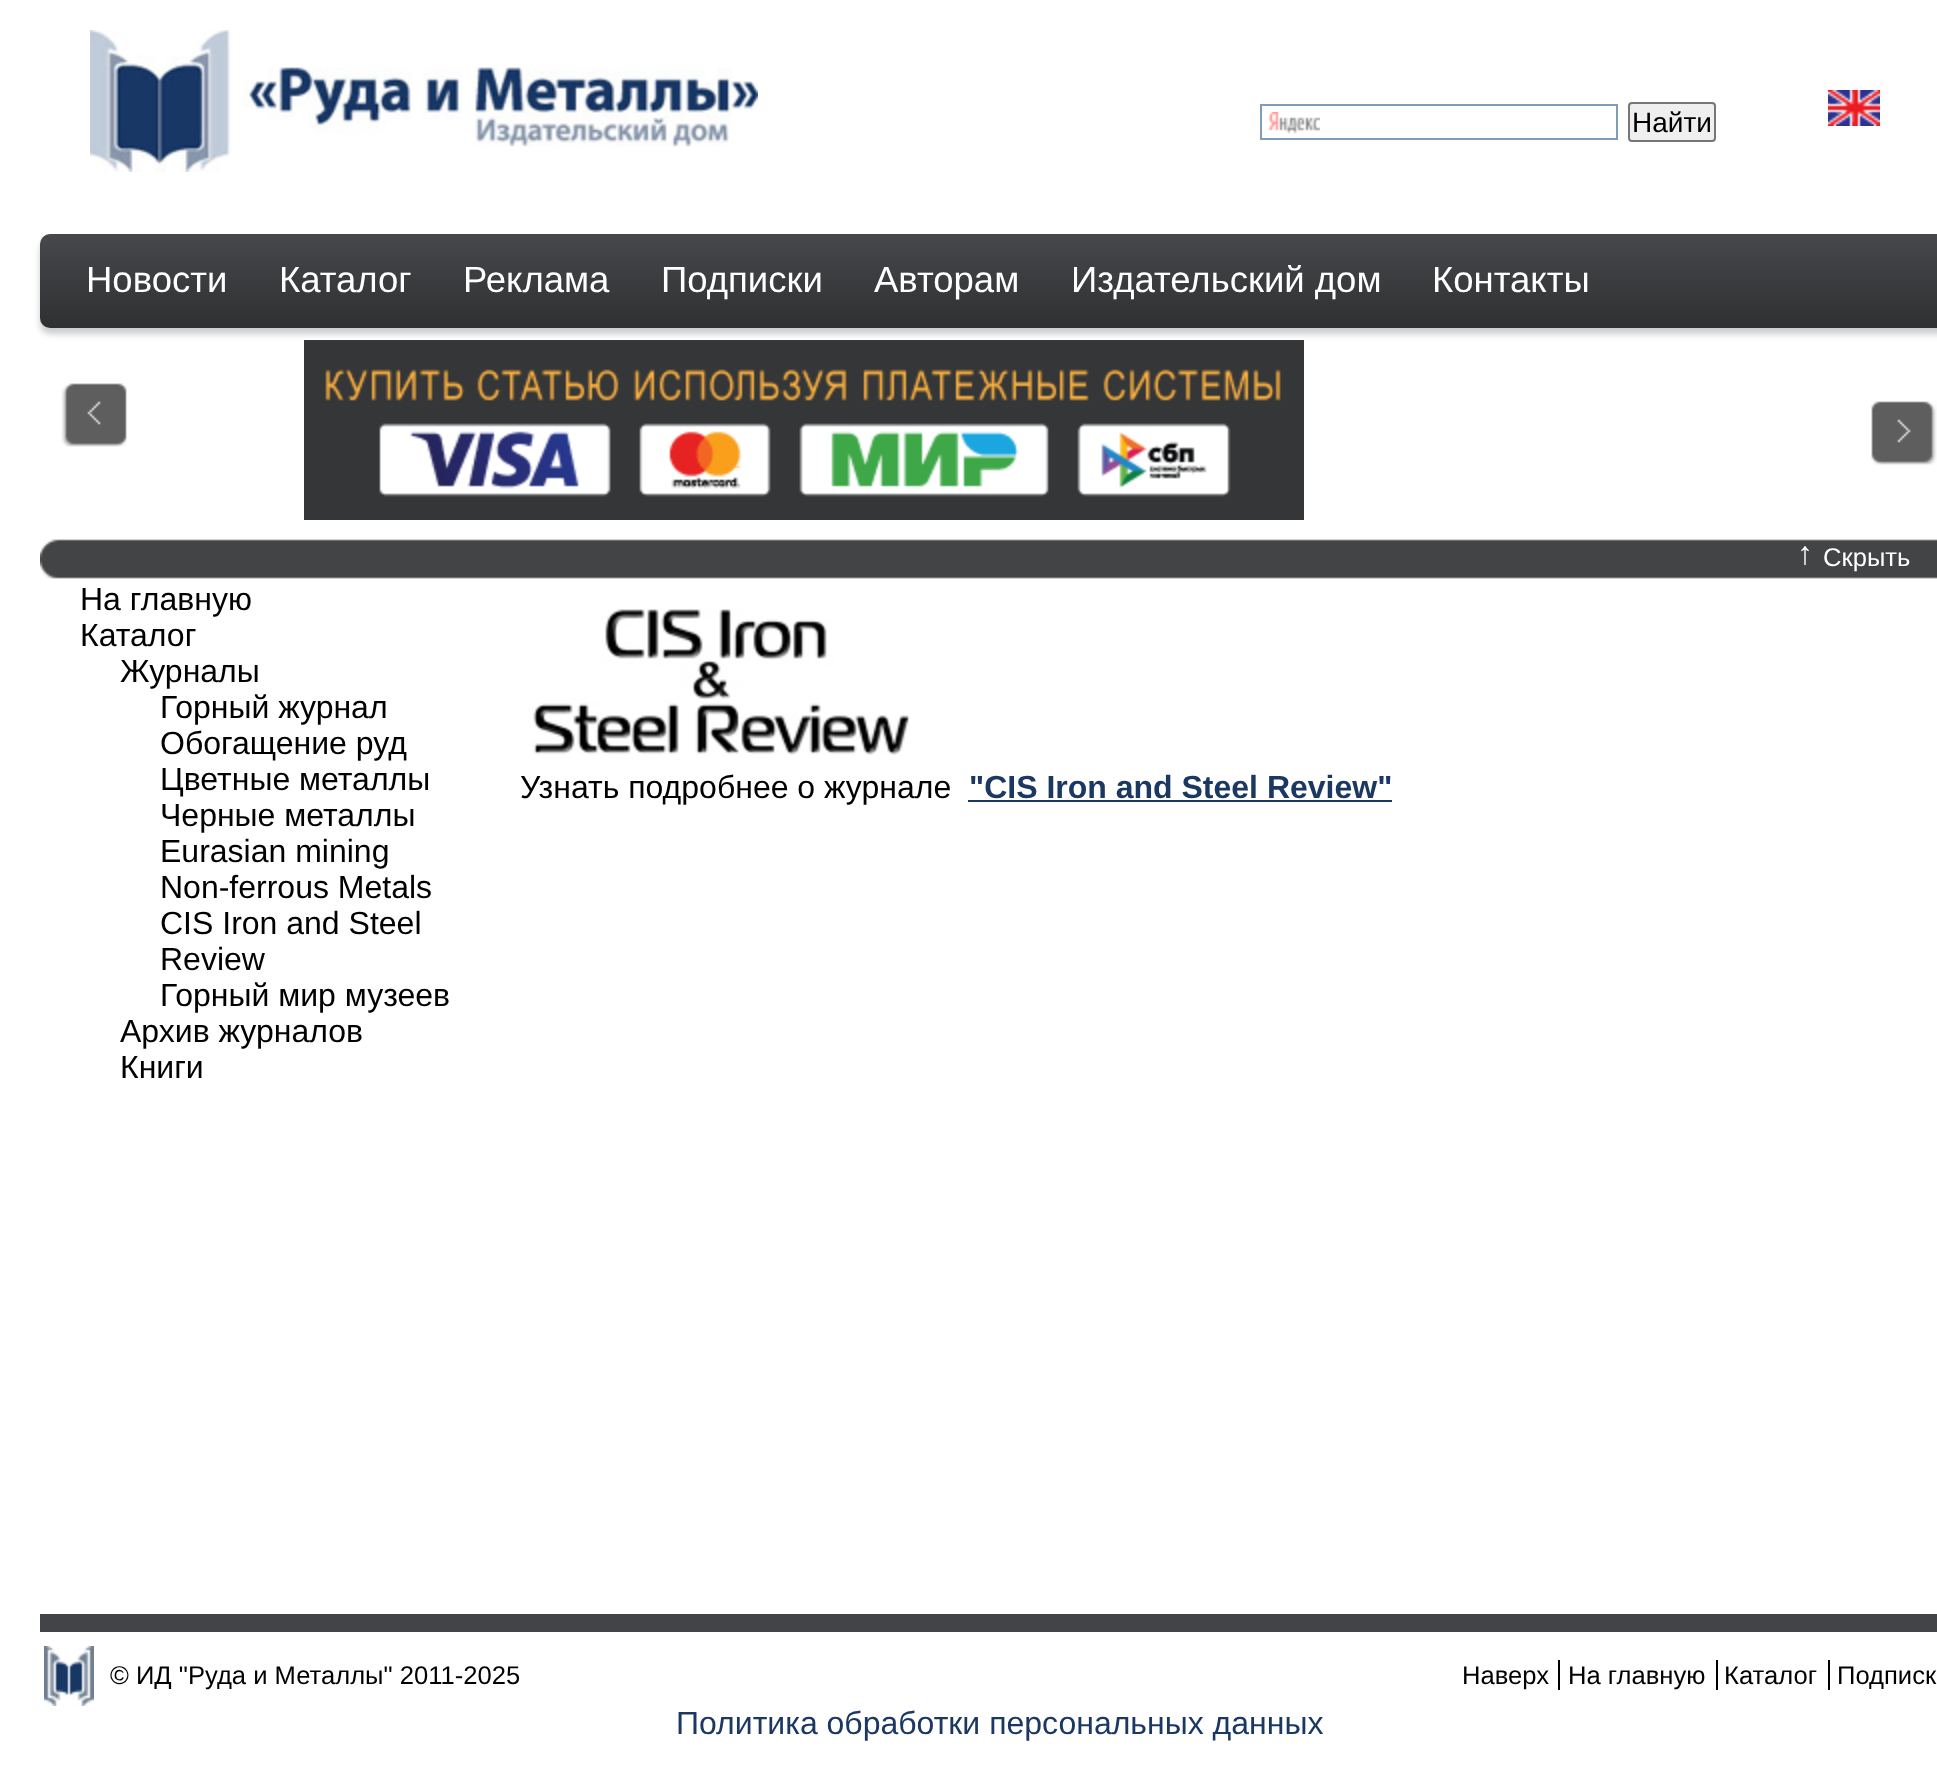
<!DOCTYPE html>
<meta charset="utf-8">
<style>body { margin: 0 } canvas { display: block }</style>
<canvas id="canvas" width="1937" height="1774"></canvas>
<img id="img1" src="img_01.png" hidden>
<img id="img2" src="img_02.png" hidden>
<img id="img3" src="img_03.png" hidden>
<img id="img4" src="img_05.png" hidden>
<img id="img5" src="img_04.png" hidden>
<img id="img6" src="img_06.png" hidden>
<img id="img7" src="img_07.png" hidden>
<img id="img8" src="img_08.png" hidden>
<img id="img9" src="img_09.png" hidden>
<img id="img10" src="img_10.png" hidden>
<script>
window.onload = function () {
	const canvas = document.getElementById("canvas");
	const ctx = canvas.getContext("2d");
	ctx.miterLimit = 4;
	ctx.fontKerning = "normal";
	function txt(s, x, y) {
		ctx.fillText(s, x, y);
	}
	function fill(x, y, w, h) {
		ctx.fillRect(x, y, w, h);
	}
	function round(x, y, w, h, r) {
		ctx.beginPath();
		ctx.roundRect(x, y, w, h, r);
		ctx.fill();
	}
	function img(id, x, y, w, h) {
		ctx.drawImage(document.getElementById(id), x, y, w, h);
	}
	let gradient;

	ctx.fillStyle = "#FFFFFF";
	fill(0, 0, 1937, 1774);
	img("img1", 90, 30, 668, 142);
	img("img2", 1268, 112, 52, 22);
	ctx.strokeStyle = "#7F9DB9";
	ctx.lineWidth = 2;
	ctx.strokeRect(1261, 105, 356, 34);
	ctx.fillStyle = "#EFEFEF";
	ctx.beginPath();
	ctx.roundRect(1629, 103, 86, 38, 3);
	ctx.fill();
	ctx.strokeStyle = "#767676";
	ctx.stroke();
	img("img3", 1828, 90, 52, 36);
	img("img4", 304, 340, 1000, 180);
	ctx.fillStyle = "#CCCCCC";
	ctx.filter = "blur(3px)";
	ctx.beginPath();
	ctx.roundRect(40, 240, 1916, 94, 10);
	ctx.fill();
	ctx.filter = "none";
	gradient = ctx.createLinearGradient(1000, 234, 1000, 328);
	gradient.addColorStop(0, "#47484B");
	gradient.addColorStop(1, "#2E3032");
	ctx.fillStyle = gradient;
	round(40, 234, 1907, 94, 10);
	img("img5", 61, 383, 66, 64);
	img("img6", 1871, 401, 66, 64);
	img("img7", 58, 539, 1879, 40);
	img("img8", 40, 539, 18, 40);
	img("img9", 533, 609, 377, 146);
	ctx.fillStyle = "#1B3863";
	fill(968, 800, 424, 2);
	ctx.fillStyle = "#434448";
	fill(40, 1614, 1897, 18);
	img("img10", 44, 1646, 50, 60);
	ctx.fillStyle = "#000000";
	fill(1558, 1660, 2, 30);
	fill(1716, 1660, 2, 30);
	fill(1828, 1660, 2, 30);
	ctx.font = "28px Liberation Sans";
	txt("Найти", 1632, 132);
	ctx.font = "36.5px Liberation Sans";
	ctx.fillStyle = "#FFFFFF";
	txt("Новости", 86, 292);
	txt("Каталог", 279, 292);
	txt("Реклама", 463, 292);
	txt("Подписки", 661, 292);
	txt("Авторам", 874, 292);
	txt("Издательский дом", 1071, 292);
	txt("Контакты", 1432, 292);
	ctx.font = "32px Liberation Serif";
	txt("↑", 1797, 564);
	ctx.font = "25.6px Liberation Sans";
	txt("Скрыть", 1823, 566);
	ctx.font = "32px Liberation Sans";
	ctx.fillStyle = "#000000";
	txt("На главную", 80, 610);
	txt("Каталог", 80, 646);
	txt("Журналы", 120, 682);
	txt("Горный журнал", 160, 718);
	txt("Обогащение руд", 160, 754);
	txt("Цветные металлы", 160, 790);
	txt("Черные металлы", 160, 826);
	txt("Eurasian mining", 160, 862);
	txt("Non-ferrous Мetals", 160, 898);
	txt("CIS Iron and Steel", 160, 934);
	txt("Review", 160, 970);
	txt("Горный мир музеев", 160, 1006);
	txt("Архив журналов", 120, 1042);
	txt("Книги", 120, 1078);
	txt("Узнать подробнее о журнале", 520, 798);
	ctx.font = "bold 32px Liberation Sans";
	ctx.fillStyle = "#1B3863";
	txt("\"CIS Iron and Steel Review\"", 969, 798);
	ctx.font = "25.6px Liberation Sans";
	ctx.fillStyle = "#000000";
	txt("© ИД \"Руда и Металлы\" 2011-2025", 110, 1684);
	txt("Наверх", 1462, 1684);
	txt("На главную", 1568, 1684);
	txt("Каталог", 1724, 1684);
	txt("Подписк", 1837, 1684);
	ctx.font = "32px Liberation Sans";
	ctx.fillStyle = "#1B3863";
	txt("Политика обработки персональных данных", 676, 1734);
};
</script>
